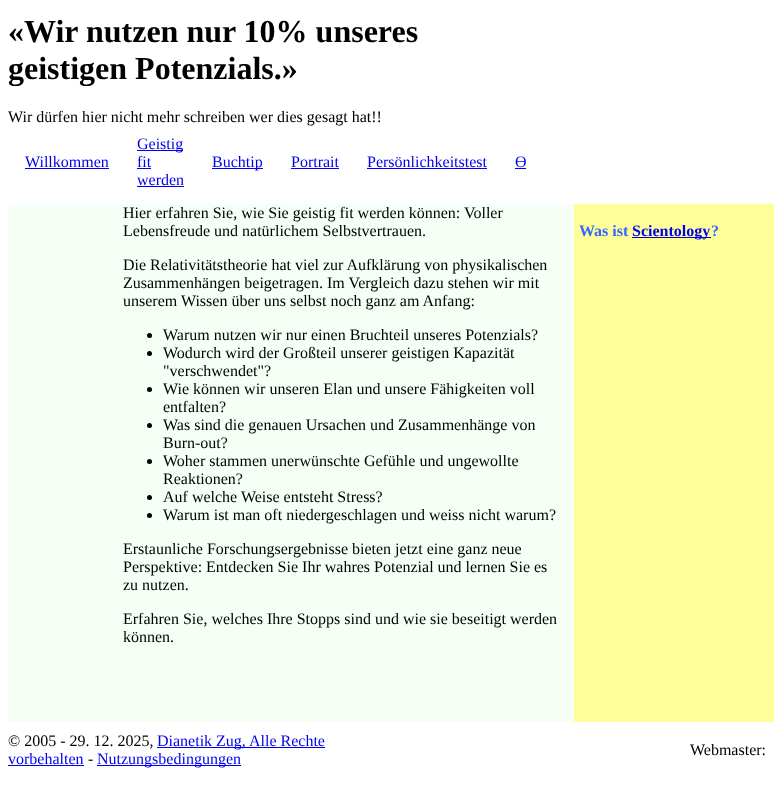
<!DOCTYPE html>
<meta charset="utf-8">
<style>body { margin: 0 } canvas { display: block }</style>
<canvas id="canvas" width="782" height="793"></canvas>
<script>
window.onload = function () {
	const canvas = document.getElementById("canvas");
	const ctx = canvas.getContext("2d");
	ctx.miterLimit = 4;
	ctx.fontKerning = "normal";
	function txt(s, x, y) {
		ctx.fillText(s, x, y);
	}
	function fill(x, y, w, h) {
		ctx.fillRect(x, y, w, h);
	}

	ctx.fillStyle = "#FFFFFF";
	fill(0, 0, 782, 793);
	ctx.fillStyle = "#0000EE";
	fill(25, 168, 84, 1);
	fill(137, 150, 46, 1);
	fill(137, 168, 14, 1);
	fill(137, 186, 47, 1);
	fill(212, 168, 51, 1);
	fill(291, 168, 48, 1);
	fill(367, 168, 120, 1);
	fill(515, 168, 11, 1);
	ctx.fillStyle = "#F6FFF6";
	fill(8, 204, 566, 518);
	ctx.fillStyle = "#000000";
	ctx.beginPath();
	ctx.arc(149.5, 335.5, 2.5, 0, Math.PI * 2);
	ctx.fill();
	ctx.beginPath();
	ctx.arc(149.5, 353.5, 2.5, 0, Math.PI * 2);
	ctx.fill();
	ctx.beginPath();
	ctx.arc(149.5, 389.5, 2.5, 0, Math.PI * 2);
	ctx.fill();
	ctx.beginPath();
	ctx.arc(149.5, 425.5, 2.5, 0, Math.PI * 2);
	ctx.fill();
	ctx.beginPath();
	ctx.arc(149.5, 461.5, 2.5, 0, Math.PI * 2);
	ctx.fill();
	ctx.beginPath();
	ctx.arc(149.5, 497.5, 2.5, 0, Math.PI * 2);
	ctx.fill();
	ctx.beginPath();
	ctx.arc(149.5, 515.5, 2.5, 0, Math.PI * 2);
	ctx.fill();
	ctx.fillStyle = "#FFFF99";
	fill(574, 204, 200, 518);
	ctx.fillStyle = "#0000EE";
	fill(632, 237, 79, 1);
	fill(157, 747, 168, 1);
	fill(8, 765, 76, 1);
	fill(97, 765, 144, 1);
	ctx.font = "bold 32px Liberation Serif";
	ctx.fillStyle = "#000000";
	txt("«Wir nutzen nur 10% unseres", 8, 42);
	txt("geistigen Potenzials.»", 8, 79);
	ctx.font = "16px Liberation Serif";
	txt("Wir dürfen hier nicht mehr schreiben wer dies gesagt hat!!", 8, 122);
	ctx.fillStyle = "#0000EE";
	txt("Willkommen", 25, 167);
	txt("Geistig", 137, 149);
	txt("fit", 137, 167);
	txt("werden", 137, 185);
	txt("Buchtip", 212, 167);
	txt("Portrait", 291, 167);
	txt("Persönlichkeitstest", 367, 167);
	txt("Ɵ", 515, 167);
	ctx.fillStyle = "#000000";
	txt("Hier erfahren Sie, wie Sie geistig fit werden können: Voller", 123, 218);
	txt("Lebensfreude und natürlichem Selbstvertrauen.", 123, 236);
	txt("Die Relativitätstheorie hat viel zur Aufklärung von physikalischen", 123, 270);
	txt("Zusammenhängen beigetragen. Im Vergleich dazu stehen wir mit", 123, 288);
	txt("unserem Wissen über uns selbst noch ganz am Anfang:", 123, 306);
	txt("Warum nutzen wir nur einen Bruchteil unseres Potenzials?", 163, 340);
	txt("Wodurch wird der Großteil unserer geistigen Kapazität", 163, 358);
	txt("\"verschwendet\"?", 163, 376);
	txt("Wie können wir unseren Elan und unsere Fähigkeiten voll", 163, 394);
	txt("entfalten?", 163, 412);
	txt("Was sind die genauen Ursachen und Zusammenhänge von", 163, 430);
	txt("Burn-out?", 163, 448);
	txt("Woher stammen unerwünschte Gefühle und ungewollte", 163, 466);
	txt("Reaktionen?", 163, 484);
	txt("Auf welche Weise entsteht Stress?", 163, 502);
	txt("Warum ist man oft niedergeschlagen und weiss nicht warum?", 163, 520);
	txt("Erstaunliche Forschungsergebnisse bieten jetzt eine ganz neue", 123, 554);
	txt("Perspektive: Entdecken Sie Ihr wahres Potenzial und lernen Sie es", 123, 572);
	txt("zu nutzen.", 123, 590);
	txt("Erfahren Sie, welches Ihre Stopps sind und wie sie beseitigt werden", 123, 624);
	txt("können.", 123, 642);
	ctx.font = "bold 16px Liberation Serif";
	ctx.fillStyle = "#3366FF";
	txt("Was ist", 579, 236);
	ctx.fillStyle = "#0000EE";
	txt("Scientology", 632, 236);
	ctx.fillStyle = "#3366FF";
	txt("?", 711, 236);
	ctx.font = "16px Liberation Serif";
	ctx.fillStyle = "#000000";
	txt("© 2005 - 29. 12. 2025,", 8, 746);
	ctx.fillStyle = "#0000EE";
	txt("Dianetik Zug, Alle Rechte", 157, 746);
	txt("vorbehalten", 8, 764);
	ctx.fillStyle = "#000000";
	txt("-", 88, 764);
	ctx.fillStyle = "#0000EE";
	txt("Nutzungsbedingungen", 97, 764);
	ctx.fillStyle = "#000000";
	txt("Webmaster:", 690, 755);
};
</script>
